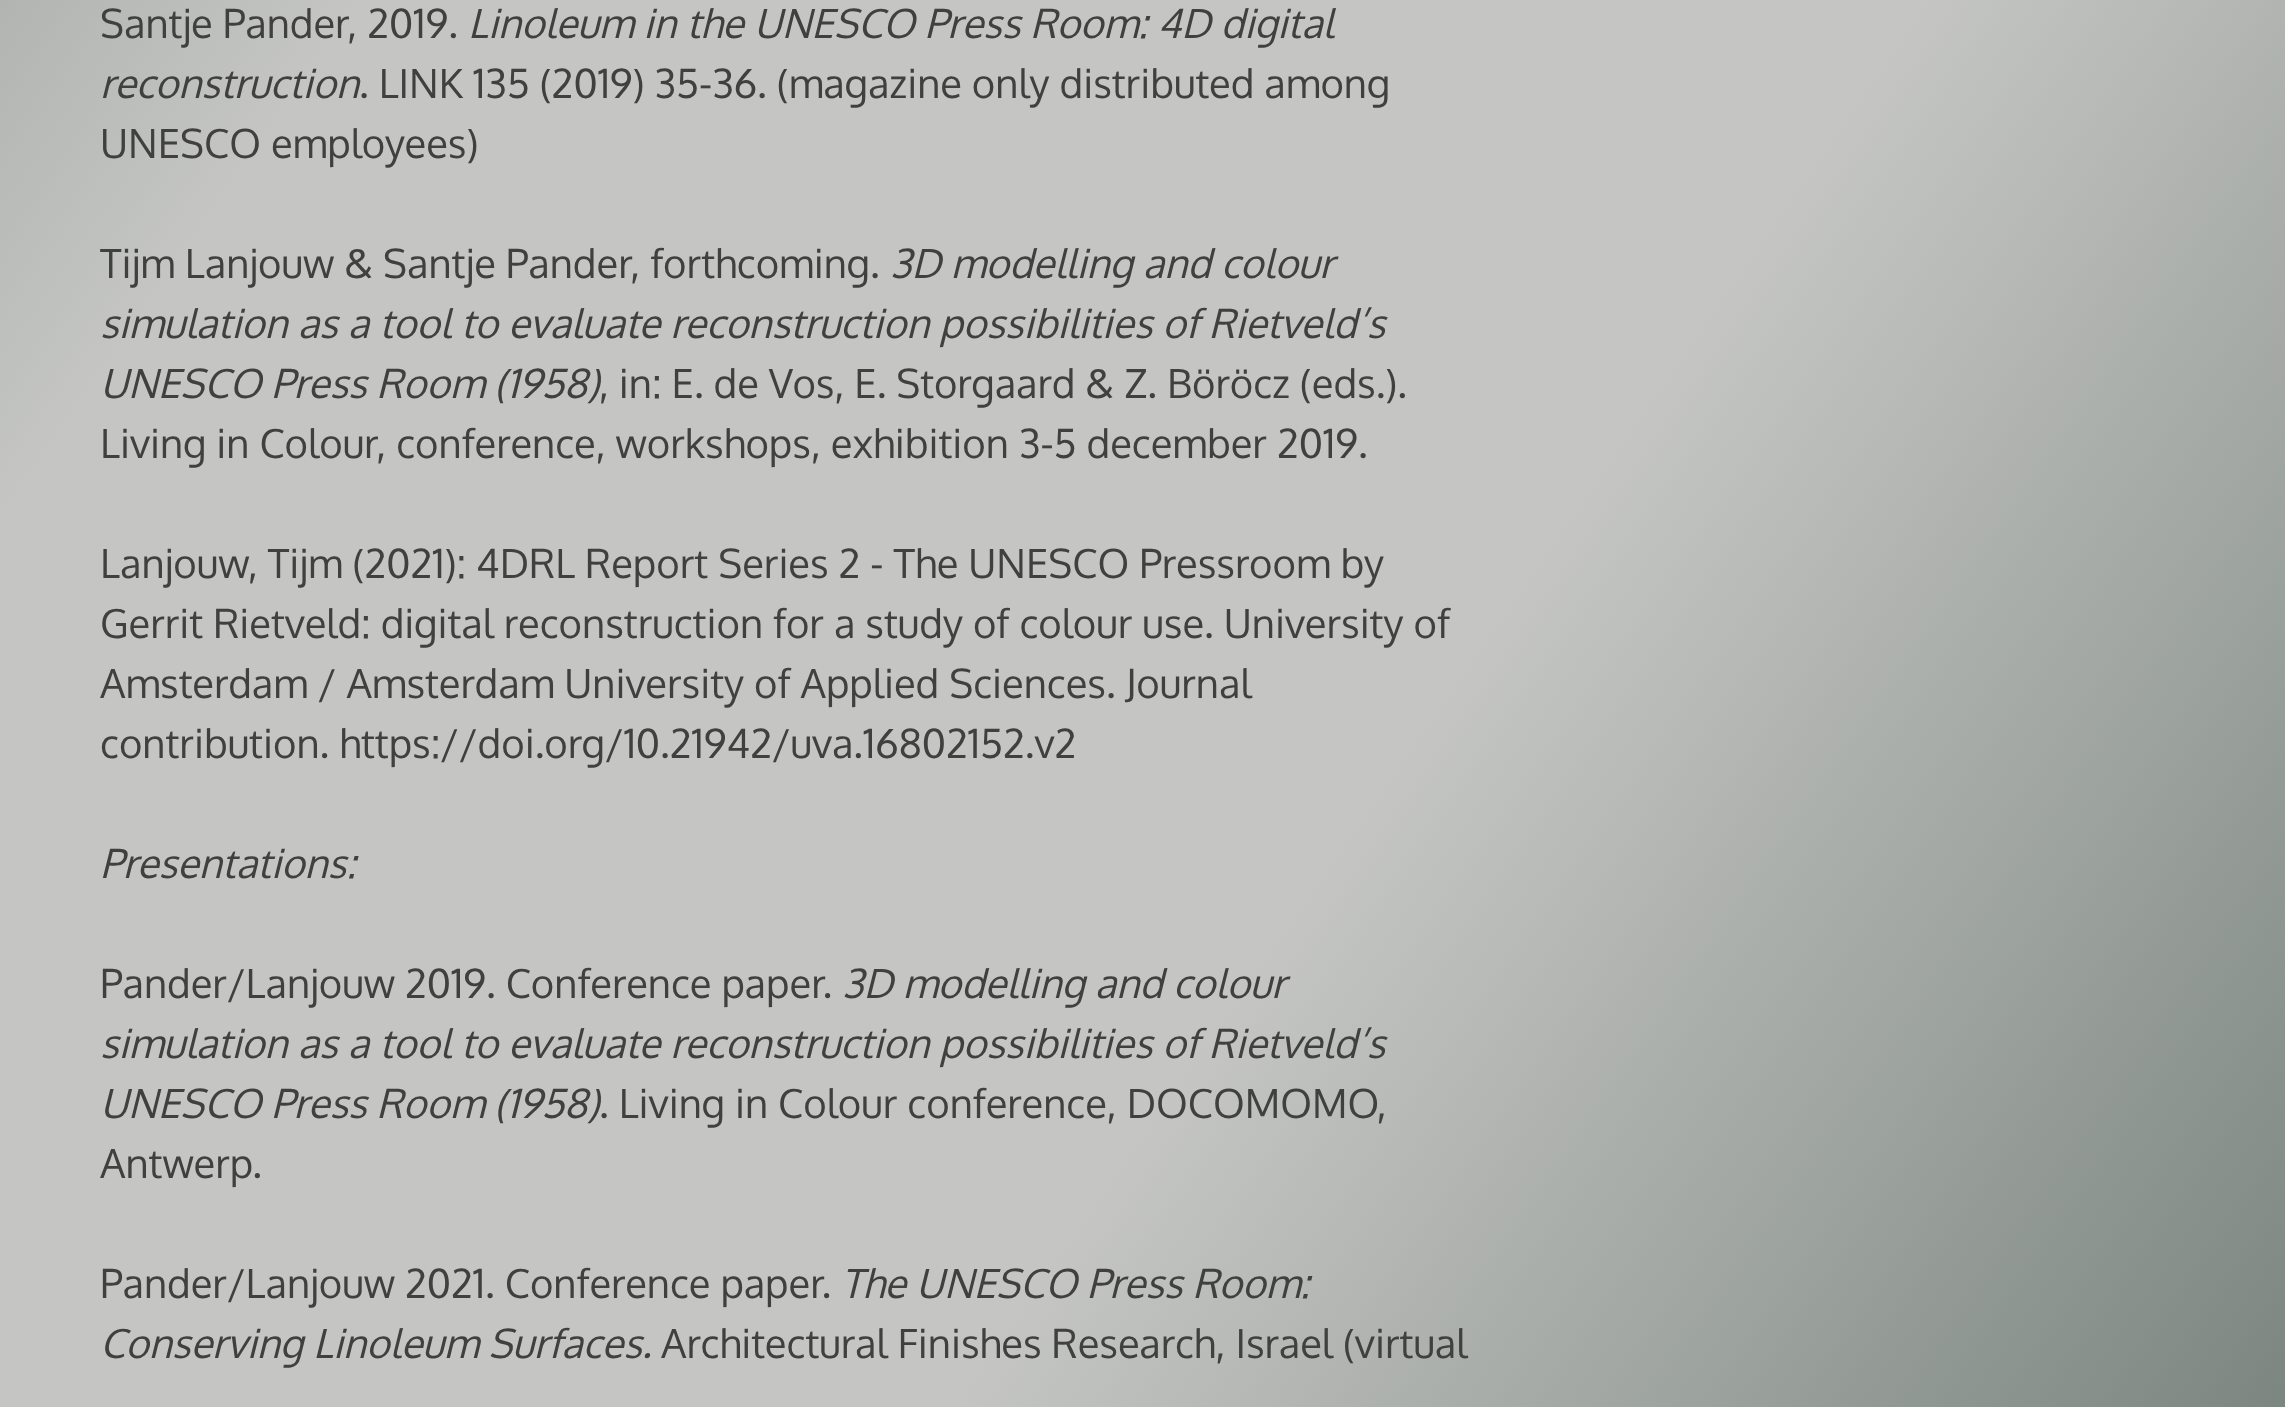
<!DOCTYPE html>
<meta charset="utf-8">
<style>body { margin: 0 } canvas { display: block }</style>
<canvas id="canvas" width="2285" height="1407"></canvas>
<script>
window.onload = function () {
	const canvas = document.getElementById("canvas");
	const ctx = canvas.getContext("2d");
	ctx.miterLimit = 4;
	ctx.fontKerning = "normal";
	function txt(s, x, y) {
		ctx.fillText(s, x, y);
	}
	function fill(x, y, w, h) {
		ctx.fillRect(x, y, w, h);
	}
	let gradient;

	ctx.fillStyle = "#FFFFFF";
	fill(0, 0, 2285, 1407);
	gradient = ctx.createLinearGradient(-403, -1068, 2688, 1070);
	gradient.addColorStop(0, "#737E78");
	gradient.addColorStop(0.33, "#C5C6C4");
	gradient.addColorStop(0.67, "#C5C6C4");
	gradient.addColorStop(1, "#737E78");
	ctx.fillStyle = gradient;
	fill(0, 0, 2285, 1407);
	ctx.font = "40px Oxygen";
	ctx.fillStyle = "#404040";
	txt("Santje Pander, 2019.", 100, 38);
	ctx.font = "italic 40px Oxygen";
	txt("Linoleum in the UNESCO Press Room: 4D digital", 468, 38);
	txt("reconstruction", 100, 98);
	ctx.font = "40px Oxygen";
	txt(". LINK 135 (2019) 35-36. (magazine only distributed among", 359, 98);
	txt("UNESCO employees)", 100, 158);
	txt("Tijm Lanjouw & Santje Pander, forthcoming.", 100, 278);
	ctx.font = "italic 40px Oxygen";
	txt("3D modelling and colour", 890, 278);
	txt("simulation as a tool to evaluate reconstruction possibilities of Rietveld’s", 100, 338);
	txt("UNESCO Press Room (1958)", 100, 398);
	ctx.font = "40px Oxygen";
	txt(", in: E. de Vos, E. Storgaard & Z. Böröcz (eds.).", 599, 398);
	txt("Living in Colour, conference, workshops, exhibition 3-5 december 2019.", 100, 458);
	txt("Lanjouw, Tijm (2021): 4DRL Report Series 2 - The UNESCO Pressroom by", 100, 578);
	txt("Gerrit Rietveld: digital reconstruction for a study of colour use. University of", 100, 638);
	txt("Amsterdam / Amsterdam University of Applied Sciences. Journal", 100, 698);
	txt("contribution. https://doi.org/10.21942/uva.16802152.v2", 100, 758);
	ctx.font = "italic 40px Oxygen";
	txt("Presentations:", 100, 878);
	ctx.font = "40px Oxygen";
	txt("Pander/Lanjouw 2019. Conference paper.", 100, 998);
	ctx.font = "italic 40px Oxygen";
	txt("3D modelling and colour", 842, 998);
	txt("simulation as a tool to evaluate reconstruction possibilities of Rietveld’s", 100, 1058);
	txt("UNESCO Press Room (1958)", 100, 1118);
	ctx.font = "40px Oxygen";
	txt(". Living in Colour conference, DOCOMOMO,", 599, 1118);
	txt("Antwerp.", 100, 1178);
	txt("Pander/Lanjouw 2021. Conference paper.", 100, 1298);
	ctx.font = "italic 40px Oxygen";
	txt("The UNESCO Press Room:", 841, 1298);
	txt("Conserving Linoleum Surfaces.", 100, 1358);
	ctx.font = "40px Oxygen";
	txt("Architectural Finishes Research, Israel (virtual", 661, 1358);
};
</script>
